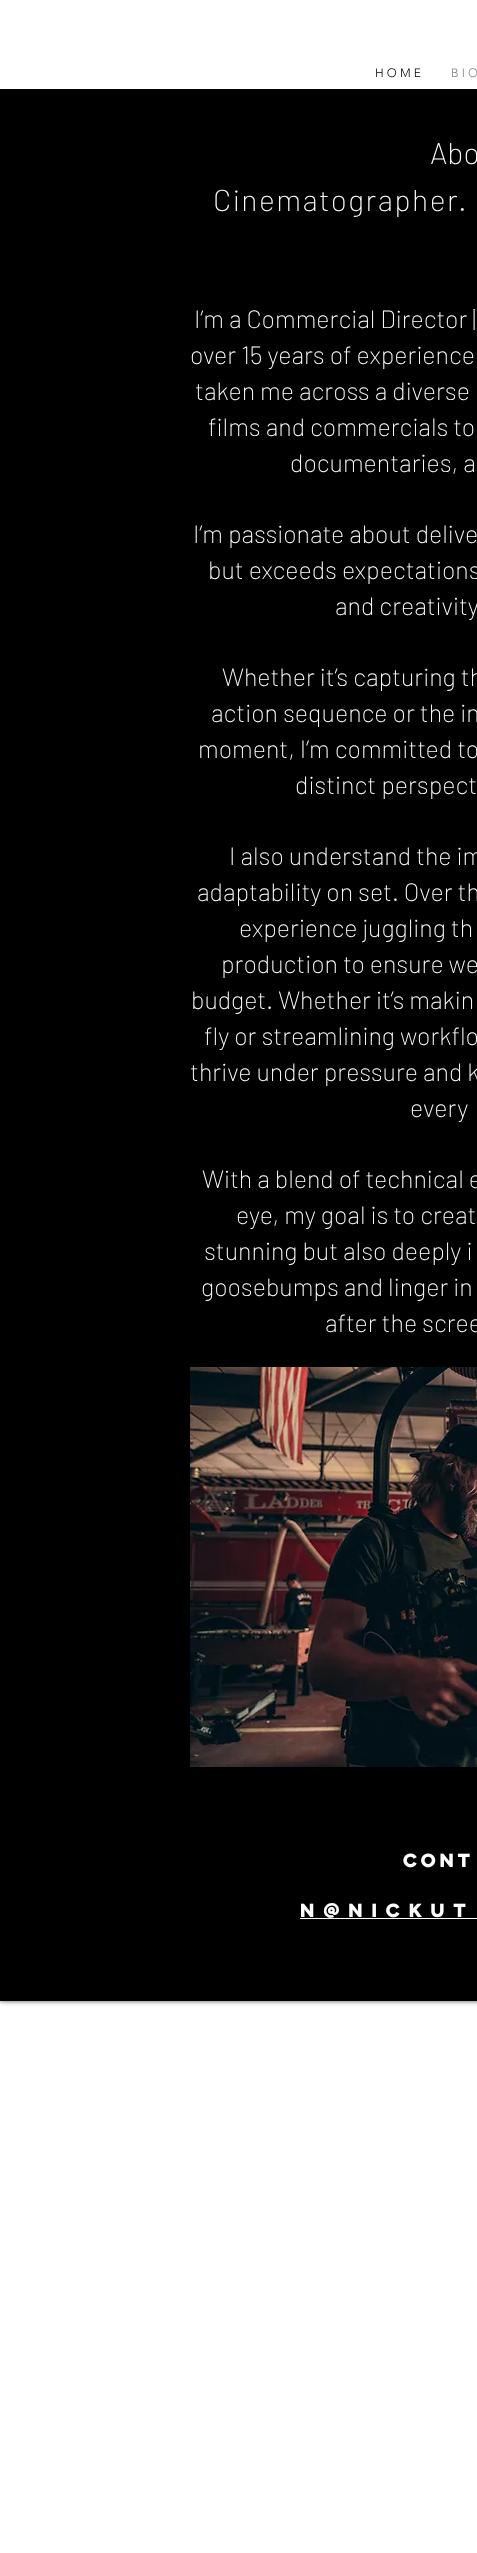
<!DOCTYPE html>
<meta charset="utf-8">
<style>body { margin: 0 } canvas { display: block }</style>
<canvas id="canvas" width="477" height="2553"></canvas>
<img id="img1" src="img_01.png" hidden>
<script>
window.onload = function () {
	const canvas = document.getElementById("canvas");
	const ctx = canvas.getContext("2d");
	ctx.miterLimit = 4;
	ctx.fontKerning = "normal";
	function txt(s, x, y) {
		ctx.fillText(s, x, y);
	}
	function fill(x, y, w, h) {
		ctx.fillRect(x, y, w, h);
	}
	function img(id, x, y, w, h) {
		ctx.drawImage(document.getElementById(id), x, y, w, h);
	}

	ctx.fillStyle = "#FFFFFF";
	fill(0, 0, 477, 2553);
	ctx.fillStyle = "#000000";
	fill(0, 89, 477, 1746);
	img("img1", 190, 1367, 287, 400);
	ctx.fillStyle = "rgba(0, 0, 0, 0.7)";
	ctx.filter = "blur(2.5px)";
	ctx.beginPath();
	ctx.rect(0, 1835, 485, 166);
	ctx.fill();
	ctx.filter = "none";
	ctx.fillStyle = "#000000";
	fill(0, 1835, 477, 166);
	ctx.fillStyle = "#FFFFFF";
	fill(300, 1918, 177, 1);
	ctx.font = "300 12px 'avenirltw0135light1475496'";
	ctx.fillStyle = "#000000";
	txt("H O M E", 375, 77);
	ctx.fillStyle = "#87837E";
	txt("B I O", 451, 77);
	ctx.font = "200 30px Barlow";
	ctx.fillStyle = "#FFFFFF";
	txt("Abo", 430, 164);
	ctx.letterSpacing = "1.5px";
	txt("Cinematographer.", 213, 211);
	ctx.letterSpacing = "0px";
	ctx.font = "200 25px Barlow";
	txt("I’m a Commercial Director |", 194, 328);
	txt("over 15 years of experience", 190, 364);
	txt("taken me across a diverse", 195, 400);
	txt("films and commercials to", 208, 436);
	txt("documentaries, a", 290, 472);
	txt("I’m passionate about delive", 193, 543);
	txt("but exceeds expectations", 208, 579);
	txt("and creativity", 335, 615);
	txt("Whether it’s capturing th", 222, 686);
	txt("action sequence or the in", 211, 722);
	txt("moment, I’m committed to", 198, 758);
	txt("distinct perspect", 295, 794);
	txt("I also understand the im", 229, 865);
	txt("adaptability on set. Over th", 197, 901);
	txt("experience juggling th", 239, 937);
	txt("production to ensure we", 221, 973);
	txt("budget. Whether it’s makin", 191, 1009);
	txt("fly or streamlining workflo", 204, 1045);
	txt("thrive under pressure and k", 190, 1081);
	txt("every", 410, 1117);
	txt("With a blend of technical e", 202, 1188);
	txt("eye, my goal is to creat", 236, 1224);
	txt("stunning but also deeply i", 204, 1260);
	txt("goosebumps and linger in", 201, 1296);
	txt("after the scree", 325, 1332);
	ctx.font = "bold 17px 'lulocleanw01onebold'";
	txt("Cont", 403, 1867);
	ctx.letterSpacing = "5px";
	txt("N@Nickut", 300, 1917);
};
</script>
